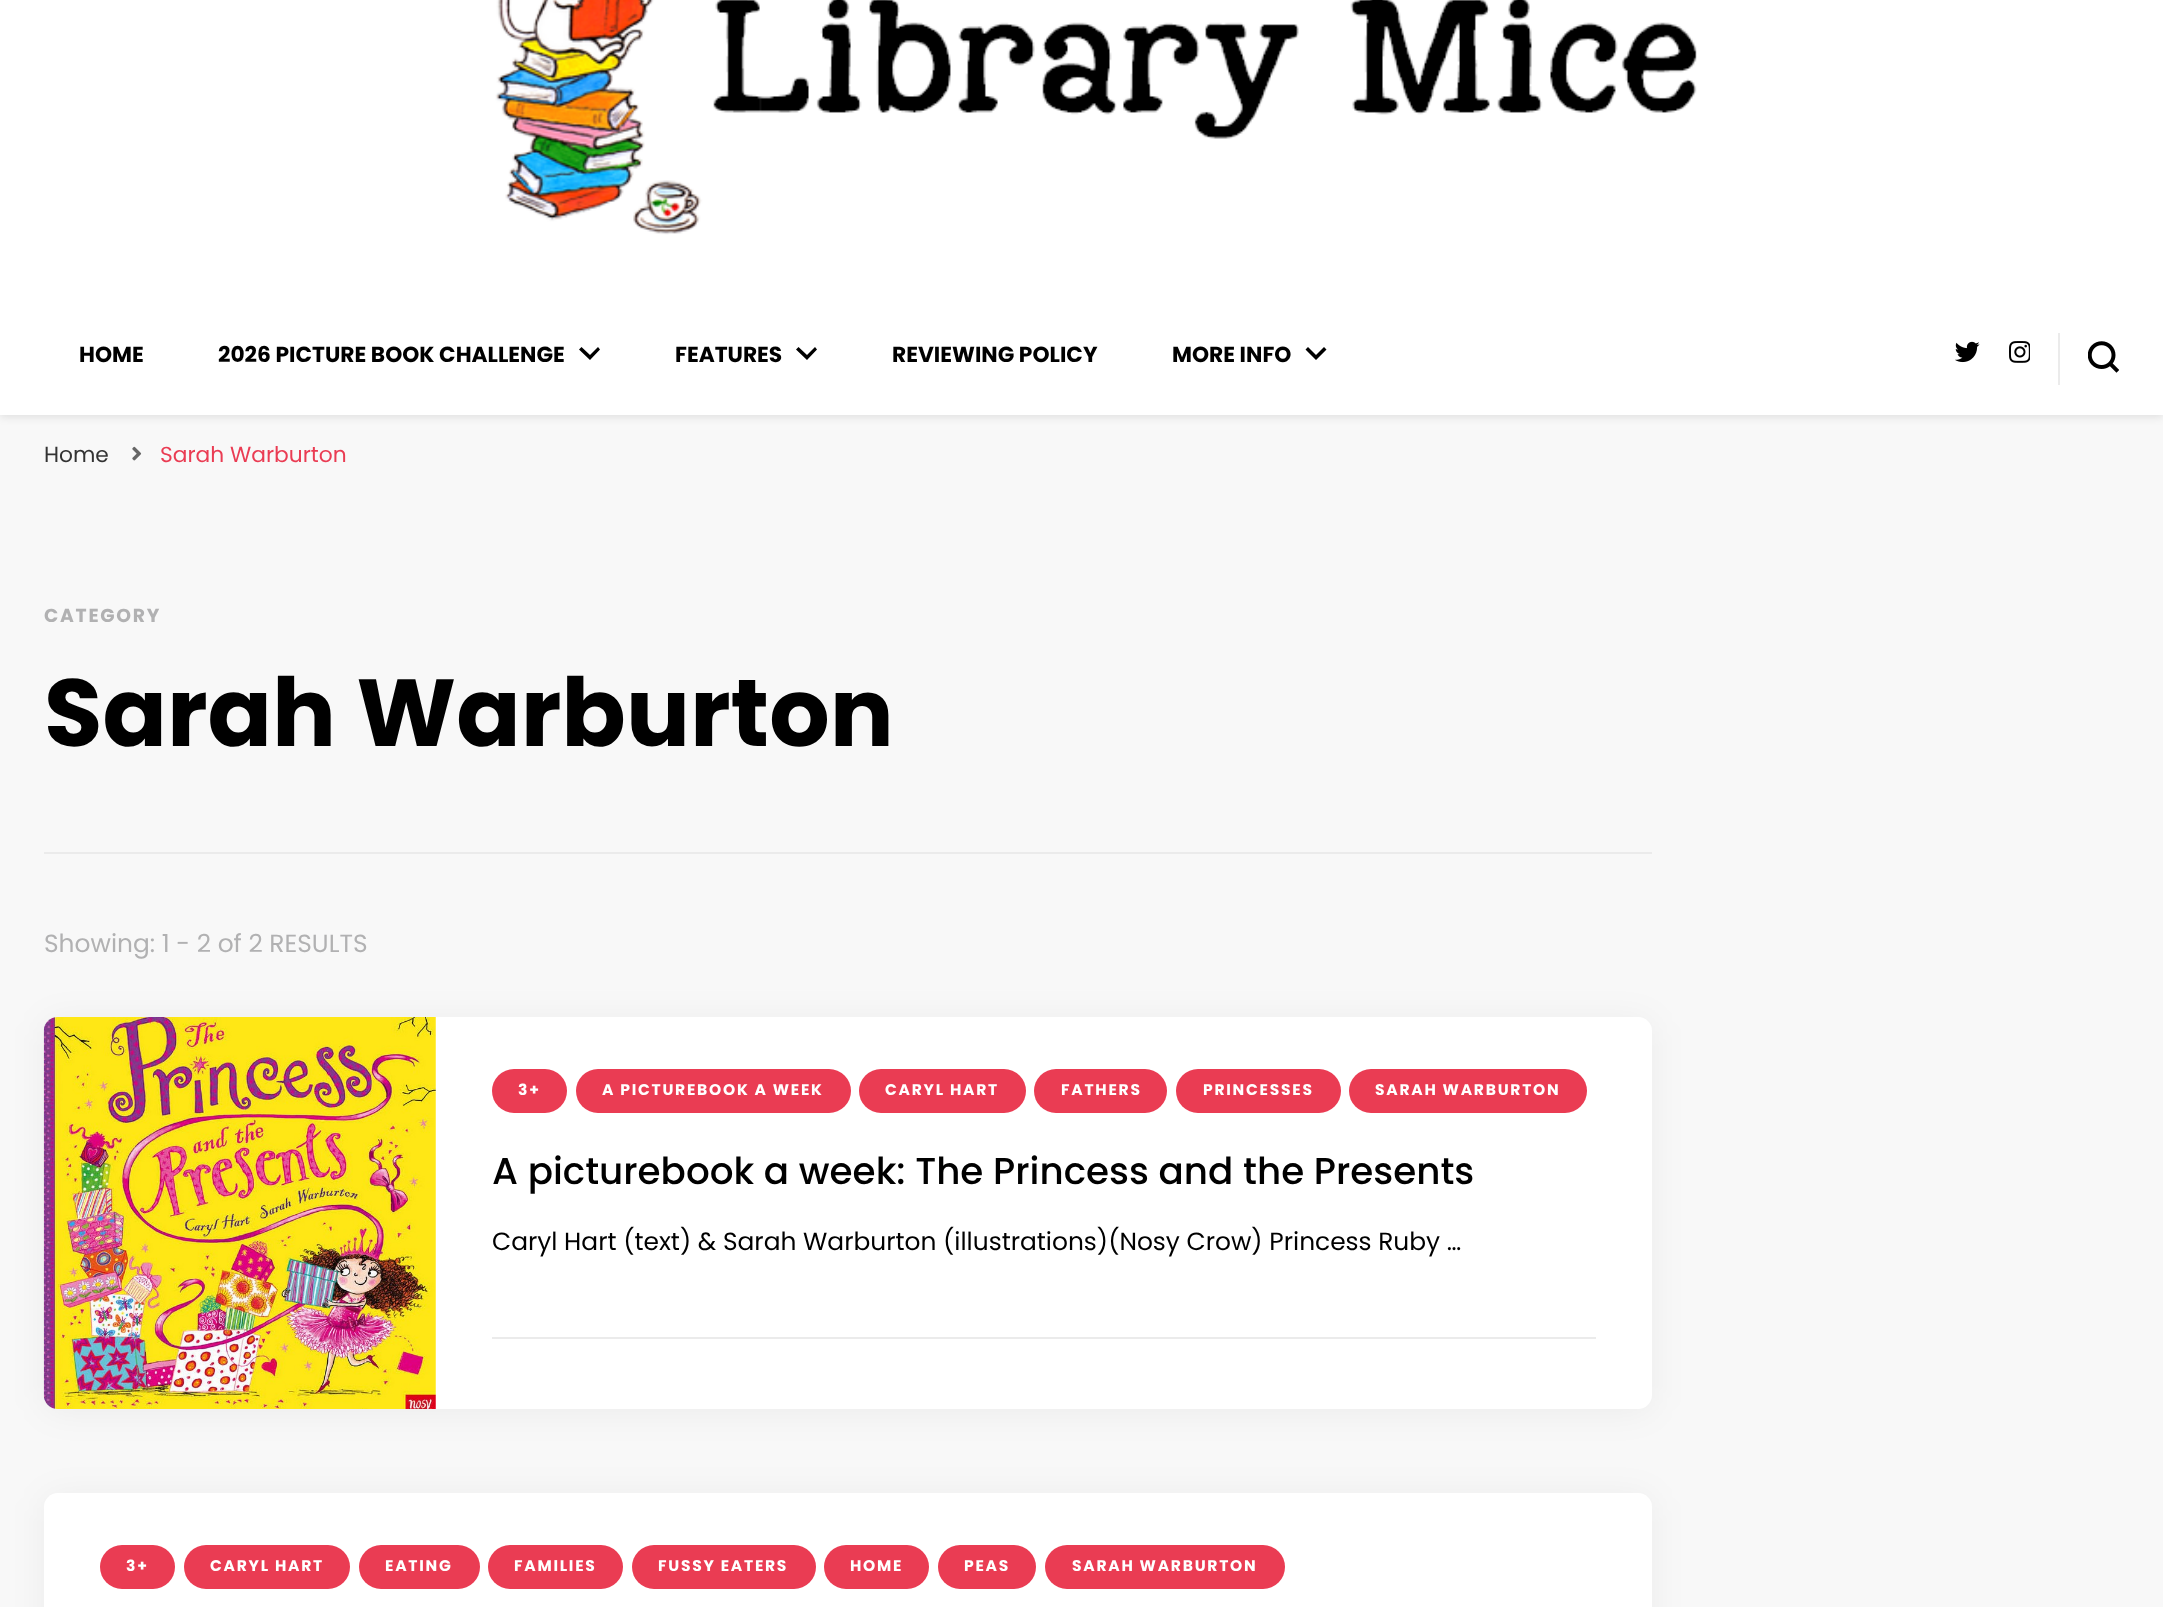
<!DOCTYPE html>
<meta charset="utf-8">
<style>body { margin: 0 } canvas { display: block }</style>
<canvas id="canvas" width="2163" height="1607"></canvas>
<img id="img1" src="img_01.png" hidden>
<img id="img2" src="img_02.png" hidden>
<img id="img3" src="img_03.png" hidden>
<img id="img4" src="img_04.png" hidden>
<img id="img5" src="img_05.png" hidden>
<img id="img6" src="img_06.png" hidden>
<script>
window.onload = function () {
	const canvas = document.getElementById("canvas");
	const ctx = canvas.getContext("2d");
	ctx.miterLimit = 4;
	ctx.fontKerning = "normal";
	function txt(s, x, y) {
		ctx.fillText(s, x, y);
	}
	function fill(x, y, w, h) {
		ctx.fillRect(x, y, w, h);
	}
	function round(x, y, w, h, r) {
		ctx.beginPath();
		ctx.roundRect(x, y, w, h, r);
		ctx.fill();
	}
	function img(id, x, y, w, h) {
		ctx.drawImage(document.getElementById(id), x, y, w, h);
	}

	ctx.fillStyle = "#F8F8F8";
	fill(0, 0, 2163, 1607);
	ctx.fillStyle = "rgba(0, 0, 0, 0.1)";
	ctx.filter = "blur(4.5px)";
	ctx.beginPath();
	ctx.rect(0, -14, 2163, 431);
	ctx.fill();
	ctx.filter = "none";
	ctx.fillStyle = "#FFFFFF";
	fill(0, 0, 2163, 415);
	img("img1", 495, 0, 1202, 235);
	ctx.fillStyle = "#000000";
	ctx.beginPath();
	ctx.moveTo(598, 347);
	ctx.lineTo(600, 349.5);
	ctx.lineTo(590, 360);
	ctx.lineTo(579, 349.5);
	ctx.lineTo(581.5, 347);
	ctx.lineTo(590, 355);
	ctx.closePath();
	ctx.fill();
	ctx.beginPath();
	ctx.moveTo(815, 347);
	ctx.lineTo(817, 349.5);
	ctx.lineTo(807, 360);
	ctx.lineTo(796, 349.5);
	ctx.lineTo(798.5, 347);
	ctx.lineTo(807, 355);
	ctx.closePath();
	ctx.fill();
	ctx.beginPath();
	ctx.moveTo(1324, 347);
	ctx.lineTo(1326.5, 349.5);
	ctx.lineTo(1316, 360);
	ctx.lineTo(1305.5, 349.5);
	ctx.lineTo(1308, 347);
	ctx.lineTo(1316, 355);
	ctx.closePath();
	ctx.fill();
	img("img2", 1955, 341, 25, 22);
	img("img3", 2009, 341, 21, 22);
	ctx.fillStyle = "#EBEBEB";
	fill(2058, 333, 2, 52);
	img("img4", 2088, 341, 31, 32);
	img("img5", 132, 446, 10, 15);
	fill(44, 852, 1608, 2);
	ctx.fillStyle = "rgba(0, 0, 0, 0.05)";
	ctx.filter = "blur(17.5px)";
	ctx.beginPath();
	ctx.roundRect(44, 1020, 1608, 392, 14);
	ctx.fill();
	ctx.filter = "none";
	ctx.fillStyle = "#FFFFFF";
	round(44, 1017, 1608, 392, 14);
	img("img6", 43, 1017, 393, 392);
	ctx.fillStyle = "#EA3C53";
	round(492, 1069, 75, 44, 22);
	round(576, 1069, 275, 44, 22);
	round(859, 1069, 167, 44, 22);
	round(1034, 1069, 133, 44, 22);
	round(1176, 1069, 165, 44, 22);
	round(1349, 1069, 238, 44, 22);
	ctx.fillStyle = "#EBEBEB";
	fill(492, 1337, 1104, 2);
	ctx.fillStyle = "rgba(0, 0, 0, 0.05)";
	ctx.filter = "blur(17.5px)";
	ctx.beginPath();
	ctx.roundRect(44, 1496, 1608, 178, 14);
	ctx.fill();
	ctx.filter = "none";
	ctx.fillStyle = "#FFFFFF";
	round(44, 1493, 1608, 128, 14);
	ctx.fillStyle = "#EA3C53";
	round(100, 1545, 75, 44, 22);
	round(184, 1545, 166, 44, 22);
	round(359, 1545, 121, 44, 22);
	round(488, 1545, 135, 44, 22);
	round(632, 1545, 184, 44, 22);
	round(824, 1545, 105, 44, 22);
	round(938, 1545, 98, 44, 22);
	round(1045, 1545, 240, 44, 22);
	ctx.font = "bold 21.75px Poppins";
	ctx.fillStyle = "#000000";
	txt("HOME", 79, 362);
	txt("2026 PICTURE BOOK CHALLENGE", 218, 362);
	txt("FEATURES", 675, 362);
	txt("REVIEWING POLICY", 892, 362);
	txt("MORE INFO", 1172, 362);
	ctx.font = "21.75px Poppins";
	ctx.fillStyle = "#333333";
	txt("Home", 44, 462);
	ctx.fillStyle = "#EA3C53";
	txt("Sarah Warburton", 160, 462);
	ctx.letterSpacing = "1.75px";
	ctx.font = "bold 18.75px Poppins";
	ctx.fillStyle = "#B1B1B2";
	txt("CATEGORY", 44, 622);
	ctx.letterSpacing = "0px";
	ctx.font = "bold 95px Poppins";
	ctx.fillStyle = "#000000";
	txt("Sarah Warburton", 44, 746);
	ctx.font = "24.9px Poppins";
	ctx.fillStyle = "#B1B1B2";
	txt("Showing: 1 - 2 of 2 RESULTS", 44, 952);
	ctx.letterSpacing = "1.75px";
	ctx.font = "bold 15.5px Poppins";
	ctx.fillStyle = "#FFFFFF";
	txt("3+", 518, 1095);
	txt("A PICTUREBOOK A WEEK", 602, 1095);
	txt("CARYL HART", 885, 1095);
	txt("FATHERS", 1061, 1095);
	txt("PRINCESSES", 1203, 1095);
	txt("SARAH WARBURTON", 1375, 1095);
	ctx.letterSpacing = "0px";
	ctx.font = "500 37.3px Poppins";
	ctx.fillStyle = "#000000";
	txt("A picturebook a week: The Princess and the Presents", 492, 1184);
	ctx.font = "24.9px Poppins";
	txt("Caryl Hart (text) & Sarah Warburton (illustrations)(Nosy Crow) Princess Ruby …", 492, 1250);
	ctx.letterSpacing = "1.75px";
	ctx.font = "bold 15.5px Poppins";
	ctx.fillStyle = "#FFFFFF";
	txt("3+", 126, 1571);
	txt("CARYL HART", 210, 1571);
	txt("EATING", 385, 1571);
	txt("FAMILIES", 514, 1571);
	txt("FUSSY EATERS", 658, 1571);
	txt("HOME", 850, 1571);
	txt("PEAS", 964, 1571);
	txt("SARAH WARBURTON", 1072, 1571);
};
</script>
